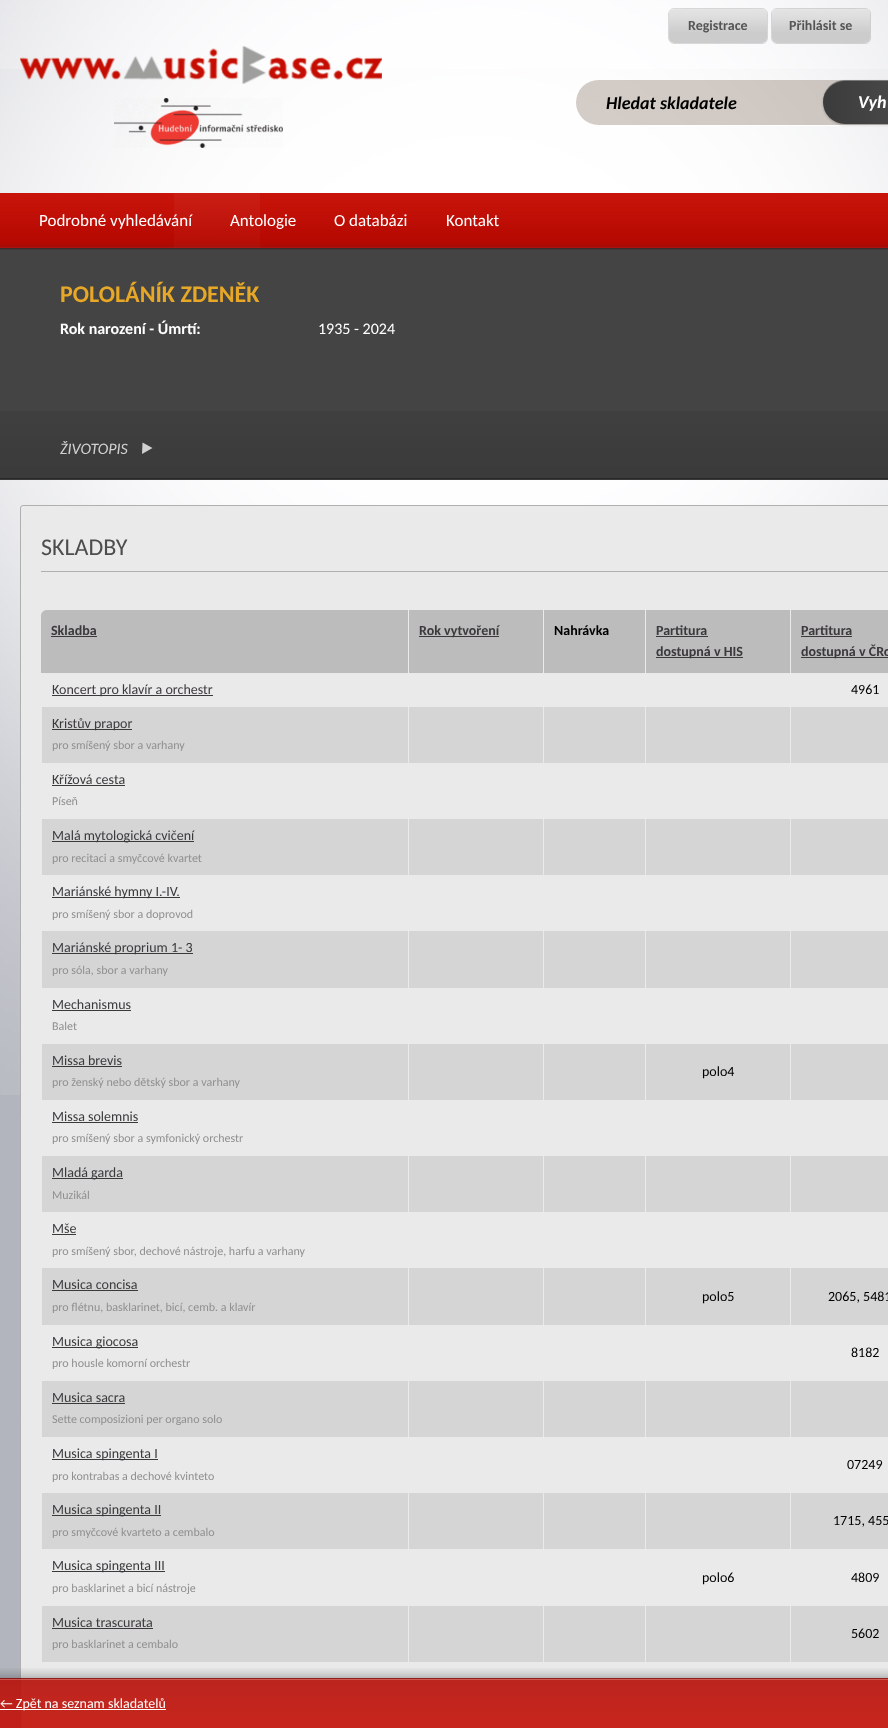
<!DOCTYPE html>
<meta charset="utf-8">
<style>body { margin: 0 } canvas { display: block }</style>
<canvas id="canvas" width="888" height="1728"></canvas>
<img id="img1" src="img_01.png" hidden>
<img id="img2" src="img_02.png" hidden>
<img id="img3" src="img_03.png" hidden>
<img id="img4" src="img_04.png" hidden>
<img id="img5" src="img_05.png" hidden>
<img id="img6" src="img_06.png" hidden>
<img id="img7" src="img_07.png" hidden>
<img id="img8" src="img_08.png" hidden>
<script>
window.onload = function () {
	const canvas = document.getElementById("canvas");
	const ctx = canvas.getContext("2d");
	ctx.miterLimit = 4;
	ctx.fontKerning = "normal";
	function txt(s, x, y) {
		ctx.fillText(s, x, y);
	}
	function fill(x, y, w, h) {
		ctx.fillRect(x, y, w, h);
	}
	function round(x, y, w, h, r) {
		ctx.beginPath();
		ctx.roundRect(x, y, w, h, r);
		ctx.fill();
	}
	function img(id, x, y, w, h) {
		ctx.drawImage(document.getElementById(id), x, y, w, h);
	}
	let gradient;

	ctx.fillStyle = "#B3B5BE";
	fill(0, 0, 888, 1728);
	img("img1", 0, 0, 888, 1095);
	img("img2", 0, 69, 888, 184);
	ctx.beginPath();
	ctx.roundRect(668.5, 8.5, 99, 35, 5.5);
	ctx.strokeStyle = "rgba(0, 0, 0, 0.14)";
	ctx.stroke();
	img("img3", 669, 9, 98, 34);
	ctx.fillStyle = "rgba(255, 255, 255, 0.11)";
	ctx.beginPath();
	ctx.moveTo(674, 10);
	ctx.lineTo(762, 10);
	ctx.bezierCurveTo(765, 10, 767, 12, 767, 15);
	ctx.bezierCurveTo(767, 5, 753, 9, 747, 9);
	ctx.lineTo(689, 9);
	ctx.bezierCurveTo(683, 9, 669, 5, 669, 15);
	ctx.bezierCurveTo(669, 12, 671, 10, 674, 10);
	ctx.closePath();
	ctx.fill();
	ctx.beginPath();
	ctx.roundRect(771.5, 8.5, 99, 35, 5.5);
	ctx.stroke();
	img("img4", 772, 9, 98, 34);
	ctx.beginPath();
	ctx.moveTo(777, 10);
	ctx.lineTo(865, 10);
	ctx.bezierCurveTo(868, 10, 870, 12, 870, 15);
	ctx.bezierCurveTo(870, 5, 856, 9, 850, 9);
	ctx.lineTo(792, 9);
	ctx.bezierCurveTo(786, 9, 772, 5, 772, 15);
	ctx.bezierCurveTo(772, 12, 774, 10, 777, 10);
	ctx.closePath();
	ctx.fill();
	img("img5", 20, 46, 362, 38);
	img("img6", 114, 98, 169, 50);
	ctx.fillStyle = "#FFFFFF";
	ctx.beginPath();
	ctx.moveTo(576, 103);
	ctx.bezierCurveTo(576, 116, 586, 126, 598, 126);
	ctx.lineTo(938, 126);
	ctx.bezierCurveTo(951, 126, 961, 116, 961, 103);
	ctx.bezierCurveTo(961, 115, 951, 125, 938, 125);
	ctx.lineTo(598, 125);
	ctx.bezierCurveTo(586, 125, 576, 115, 576, 103);
	ctx.closePath();
	ctx.fill();
	ctx.fillStyle = "rgba(62, 27, 1, 0.22)";
	round(576, 80, 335, 45, 22.5);
	ctx.fillStyle = "rgba(0, 0, 0, 0.25)";
	ctx.filter = "blur(1px)";
	ctx.beginPath();
	ctx.roundRect(823, 81, 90, 44, 22);
	ctx.fill();
	ctx.filter = "none";
	gradient = ctx.createLinearGradient(823, 102, 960, 102);
	gradient.addColorStop(0, "#3B3B3B");
	gradient.addColorStop(1, "#545454");
	ctx.fillStyle = gradient;
	round(823, 80, 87, 44, 22);
	ctx.fillStyle = "rgba(202, 202, 202, 0.41)";
	ctx.beginPath();
	ctx.moveTo(845, 81);
	ctx.lineTo(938, 81);
	ctx.bezierCurveTo(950, 81, 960, 91, 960, 103);
	ctx.bezierCurveTo(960, 92, 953, 83, 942, 80);
	ctx.lineTo(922, 80);
	ctx.lineTo(841, 80);
	ctx.bezierCurveTo(830, 83, 823, 92, 823, 103);
	ctx.bezierCurveTo(823, 91, 833, 81, 845, 81);
	ctx.closePath();
	ctx.fill();
	ctx.fillStyle = "#444444";
	fill(0, 253, 888, 227);
	img("img7", 0, 411, 888, 69);
	ctx.fillStyle = "#D1D1D1";
	ctx.beginPath();
	ctx.moveTo(152.5, 448);
	ctx.lineTo(142, 454);
	ctx.lineTo(142.5, 442.5);
	ctx.closePath();
	ctx.fill();
	ctx.fillStyle = "#EAEAEA";
	ctx.beginPath();
	ctx.roundRect(20.5, 505.5, 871, 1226, 2.5);
	ctx.fill();
	ctx.strokeStyle = "#B0B0B0";
	ctx.stroke();
	ctx.fillStyle = "#B0B0B0";
	fill(41, 571, 847, 1);
	ctx.fillStyle = "#CCCCCC";
	ctx.filter = "blur(0.5px)";
	ctx.beginPath();
	ctx.roundRect(41, 611, 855, 63, 6);
	ctx.fill();
	ctx.filter = "none";
	ctx.beginPath();
	ctx.roundRect(41.5, 610.5, 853, 62, 5.5);
	ctx.strokeStyle = "#CCCCCC";
	ctx.stroke();
	ctx.fillStyle = "#BCBCBC";
	ctx.beginPath();
	ctx.roundRect(41, 610, 367, 63, [6, 0, 0, 0]);
	ctx.fill();
	ctx.fillStyle = "#3B393C";
	fill(51, 636, 46, 1);
	ctx.fillStyle = "#BCBCBC";
	fill(409, 610, 134, 63);
	ctx.fillStyle = "#EAEAEA";
	fill(408, 610, 1, 65);
	ctx.fillStyle = "#3B393C";
	fill(419, 636, 80, 1);
	ctx.fillStyle = "#BCBCBC";
	fill(544, 610, 101, 63);
	ctx.fillStyle = "#EAEAEA";
	fill(543, 610, 1, 65);
	ctx.fillStyle = "#BCBCBC";
	fill(646, 610, 144, 63);
	ctx.fillStyle = "#EAEAEA";
	fill(645, 610, 1, 65);
	ctx.fillStyle = "#3B393C";
	fill(656, 636, 52, 1);
	fill(656, 657, 87, 1);
	ctx.fillStyle = "#BCBCBC";
	fill(791, 610, 97, 63);
	ctx.fillStyle = "#EAEAEA";
	fill(790, 610, 1, 65);
	ctx.fillStyle = "#3B393C";
	fill(801, 636, 51, 1);
	fill(801, 657, 87, 1);
	ctx.fillStyle = "#E8E8E8";
	fill(409, 673, 134, 1);
	fill(544, 673, 101, 1);
	fill(646, 673, 144, 1);
	fill(44, 673, 364, 1);
	ctx.fillStyle = "#3B393C";
	fill(52, 695, 161, 1);
	ctx.fillStyle = "#E8E8E8";
	fill(791, 673, 97, 1);
	ctx.fillStyle = "#D5D5D5";
	fill(42, 707, 366, 56);
	ctx.fillStyle = "#3B393C";
	fill(52, 729, 80, 1);
	ctx.fillStyle = "#D5D5D5";
	fill(409, 707, 134, 56);
	fill(544, 707, 101, 56);
	fill(646, 707, 144, 56);
	fill(791, 707, 97, 56);
	ctx.fillStyle = "#3B393C";
	fill(52, 785, 73, 1);
	ctx.fillStyle = "#D5D5D5";
	fill(42, 819, 366, 56);
	ctx.fillStyle = "#3B393C";
	fill(52, 841, 142, 1);
	ctx.fillStyle = "#D5D5D5";
	fill(409, 819, 134, 56);
	fill(544, 819, 101, 56);
	fill(646, 819, 144, 56);
	fill(791, 819, 97, 56);
	ctx.fillStyle = "#3B393C";
	fill(52, 897, 128, 1);
	ctx.fillStyle = "#D5D5D5";
	fill(42, 931, 366, 57);
	ctx.fillStyle = "#3B393C";
	fill(52, 953, 141, 1);
	ctx.fillStyle = "#D5D5D5";
	fill(409, 931, 134, 57);
	fill(544, 931, 101, 57);
	fill(646, 931, 144, 57);
	fill(791, 931, 97, 57);
	ctx.fillStyle = "#3B393C";
	fill(52, 1010, 79, 1);
	ctx.fillStyle = "#D5D5D5";
	fill(42, 1044, 366, 56);
	ctx.fillStyle = "#3B393C";
	fill(52, 1066, 70, 1);
	ctx.fillStyle = "#D5D5D5";
	fill(409, 1044, 134, 56);
	fill(544, 1044, 101, 56);
	fill(646, 1044, 144, 56);
	fill(791, 1044, 97, 56);
	ctx.fillStyle = "#3B393C";
	fill(52, 1122, 86, 1);
	ctx.fillStyle = "#D5D5D5";
	fill(42, 1156, 366, 56);
	ctx.fillStyle = "#3B393C";
	fill(52, 1178, 71, 1);
	ctx.fillStyle = "#D5D5D5";
	fill(409, 1156, 134, 56);
	fill(544, 1156, 101, 56);
	fill(646, 1156, 144, 56);
	fill(791, 1156, 97, 56);
	ctx.fillStyle = "#3B393C";
	fill(52, 1234, 24, 1);
	ctx.fillStyle = "#D5D5D5";
	fill(42, 1268, 366, 57);
	ctx.fillStyle = "#3B393C";
	fill(52, 1290, 86, 1);
	ctx.fillStyle = "#D5D5D5";
	fill(409, 1268, 134, 57);
	fill(544, 1268, 101, 57);
	fill(646, 1268, 144, 57);
	fill(791, 1268, 97, 57);
	ctx.fillStyle = "#3B393C";
	fill(52, 1347, 86, 1);
	ctx.fillStyle = "#D5D5D5";
	fill(42, 1381, 366, 56);
	ctx.fillStyle = "#3B393C";
	fill(52, 1403, 73, 1);
	ctx.fillStyle = "#D5D5D5";
	fill(409, 1381, 134, 56);
	fill(544, 1381, 101, 56);
	fill(646, 1381, 144, 56);
	fill(791, 1381, 97, 56);
	ctx.fillStyle = "#3B393C";
	fill(52, 1459, 106, 1);
	ctx.fillStyle = "#D5D5D5";
	fill(42, 1493, 366, 56);
	ctx.fillStyle = "#3B393C";
	fill(52, 1515, 109, 1);
	ctx.fillStyle = "#D5D5D5";
	fill(409, 1493, 134, 56);
	fill(544, 1493, 101, 56);
	fill(646, 1493, 144, 56);
	fill(791, 1493, 97, 56);
	ctx.fillStyle = "#3B393C";
	fill(52, 1571, 113, 1);
	ctx.fillStyle = "#D5D5D5";
	fill(42, 1606, 366, 56);
	ctx.fillStyle = "#3B393C";
	fill(52, 1628, 101, 1);
	ctx.fillStyle = "#D5D5D5";
	fill(409, 1606, 134, 56);
	fill(544, 1606, 101, 56);
	fill(646, 1606, 144, 56);
	fill(791, 1606, 97, 56);
	img("img8", 0, 1668, 888, 60);
	ctx.fillStyle = "#FFFFFF";
	fill(0, 1709, 166, 1);
	ctx.font = "bold 14px Carlito";
	ctx.fillStyle = "#555555";
	txt("Registrace", 688, 30);
	txt("Přihlásit se", 789, 30);
	ctx.font = "italic bold 18px Carlito";
	ctx.fillStyle = "#000000";
	txt("Hledat skladatele", 606, 109);
	ctx.fillStyle = "#FFFFFF";
	txt("Vyh", 858, 108);
	ctx.font = "17px Carlito";
	txt("Podrobné vyhledávání", 39, 226);
	txt("Antologie", 230, 226);
	txt("O databázi", 334, 226);
	txt("Kontakt", 446, 226);
	ctx.font = "bold 24px Carlito";
	ctx.fillStyle = "#E7A827";
	txt("POLOLÁNÍK ZDENĚK", 60, 302);
	ctx.font = "bold 16px Carlito";
	ctx.fillStyle = "#FFFFFF";
	txt("Rok narození - Úmrtí:", 60, 334);
	ctx.font = "16px Carlito";
	txt("1935 - 2024", 318, 334);
	ctx.font = "italic 16px Carlito";
	ctx.fillStyle = "#D1D1D1";
	txt("ŽIVOTOPIS", 60, 454);
	ctx.font = "24px Carlito";
	ctx.fillStyle = "#4D4D4D";
	txt("SKLADBY", 41, 555);
	ctx.font = "bold 14px Carlito";
	ctx.fillStyle = "#3B393C";
	txt("Skladba", 51, 635);
	txt("Rok vytvoření", 419, 635);
	ctx.fillStyle = "#000000";
	txt("Nahrávka", 554, 635);
	ctx.fillStyle = "#3B393C";
	txt("Partitura", 656, 635);
	txt("dostupná v HIS", 656, 656);
	txt("Partitura", 801, 635);
	txt("dostupná v ČRo", 801, 656);
	ctx.font = "14px Carlito";
	txt("Koncert pro klavír a orchestr", 52, 694);
	ctx.fillStyle = "#000000";
	txt("4961", 851, 694);
	ctx.fillStyle = "#3B393C";
	txt("Kristův prapor", 52, 728);
	ctx.font = "12px Carlito";
	ctx.fillStyle = "#909090";
	txt("pro smíšený sbor a varhany", 52, 749);
	ctx.font = "14px Carlito";
	ctx.fillStyle = "#3B393C";
	txt("Křížová cesta", 52, 784);
	ctx.font = "12px Carlito";
	ctx.fillStyle = "#909090";
	txt("Píseň", 52, 805);
	ctx.font = "14px Carlito";
	ctx.fillStyle = "#3B393C";
	txt("Malá mytologická cvičení", 52, 840);
	ctx.font = "12px Carlito";
	ctx.fillStyle = "#909090";
	txt("pro recitaci a smyčcové kvartet", 52, 862);
	ctx.font = "14px Carlito";
	ctx.fillStyle = "#3B393C";
	txt("Mariánské hymny I.-IV.", 52, 896);
	ctx.font = "12px Carlito";
	ctx.fillStyle = "#909090";
	txt("pro smíšený sbor a doprovod", 52, 918);
	ctx.font = "14px Carlito";
	ctx.fillStyle = "#3B393C";
	txt("Mariánské proprium 1- 3", 52, 952);
	ctx.font = "12px Carlito";
	ctx.fillStyle = "#909090";
	txt("pro sóla, sbor a varhany", 52, 974);
	ctx.font = "14px Carlito";
	ctx.fillStyle = "#3B393C";
	txt("Mechanismus", 52, 1009);
	ctx.font = "12px Carlito";
	ctx.fillStyle = "#909090";
	txt("Balet", 52, 1030);
	ctx.font = "14px Carlito";
	ctx.fillStyle = "#3B393C";
	txt("Missa brevis", 52, 1065);
	ctx.font = "12px Carlito";
	ctx.fillStyle = "#909090";
	txt("pro ženský nebo dětský sbor a varhany", 52, 1086);
	ctx.font = "14px Carlito";
	ctx.fillStyle = "#000000";
	txt("polo4", 702, 1076);
	ctx.fillStyle = "#3B393C";
	txt("Missa solemnis", 52, 1121);
	ctx.font = "12px Carlito";
	ctx.fillStyle = "#909090";
	txt("pro smíšený sbor a symfonický orchestr", 52, 1142);
	ctx.font = "14px Carlito";
	ctx.fillStyle = "#3B393C";
	txt("Mladá garda", 52, 1177);
	ctx.font = "12px Carlito";
	ctx.fillStyle = "#909090";
	txt("Muzikál", 52, 1199);
	ctx.font = "14px Carlito";
	ctx.fillStyle = "#3B393C";
	txt("Mše", 52, 1233);
	ctx.font = "12px Carlito";
	ctx.fillStyle = "#909090";
	txt("pro smíšený sbor, dechové nástroje, harfu a varhany", 52, 1255);
	ctx.font = "14px Carlito";
	ctx.fillStyle = "#3B393C";
	txt("Musica concisa", 52, 1289);
	ctx.font = "12px Carlito";
	ctx.fillStyle = "#909090";
	txt("pro flétnu, basklarinet, bicí, cemb. a klavír", 52, 1311);
	ctx.font = "14px Carlito";
	ctx.fillStyle = "#000000";
	txt("polo5", 702, 1301);
	txt("2065, 5481", 828, 1301);
	ctx.fillStyle = "#3B393C";
	txt("Musica giocosa", 52, 1346);
	ctx.font = "12px Carlito";
	ctx.fillStyle = "#909090";
	txt("pro housle komorní orchestr", 52, 1367);
	ctx.font = "14px Carlito";
	ctx.fillStyle = "#000000";
	txt("8182", 851, 1357);
	ctx.fillStyle = "#3B393C";
	txt("Musica sacra", 52, 1402);
	ctx.font = "12px Carlito";
	ctx.fillStyle = "#909090";
	txt("Sette composizioni per organo solo", 52, 1423);
	ctx.font = "14px Carlito";
	ctx.fillStyle = "#3B393C";
	txt("Musica spingenta I", 52, 1458);
	ctx.font = "12px Carlito";
	ctx.fillStyle = "#909090";
	txt("pro kontrabas a dechové kvinteto", 52, 1480);
	ctx.font = "14px Carlito";
	ctx.fillStyle = "#000000";
	txt("07249", 847, 1469);
	ctx.fillStyle = "#3B393C";
	txt("Musica spingenta II", 52, 1514);
	ctx.font = "12px Carlito";
	ctx.fillStyle = "#909090";
	txt("pro smyčcové kvarteto a cembalo", 52, 1536);
	ctx.font = "14px Carlito";
	ctx.fillStyle = "#000000";
	txt("1715, 455", 833, 1525);
	ctx.fillStyle = "#3B393C";
	txt("Musica spingenta III", 52, 1570);
	ctx.font = "12px Carlito";
	ctx.fillStyle = "#909090";
	txt("pro basklarinet a bicí nástroje", 52, 1592);
	ctx.font = "14px Carlito";
	ctx.fillStyle = "#000000";
	txt("polo6", 702, 1582);
	txt("4809", 851, 1582);
	ctx.fillStyle = "#3B393C";
	txt("Musica trascurata", 52, 1627);
	ctx.font = "12px Carlito";
	ctx.fillStyle = "#909090";
	txt("pro basklarinet a cembalo", 52, 1648);
	ctx.font = "14px Carlito";
	ctx.fillStyle = "#000000";
	txt("5602", 851, 1638);
	ctx.fillStyle = "#FFFFFF";
	txt("← Zpět na seznam skladatelů", 0, 1708);
};
</script>
